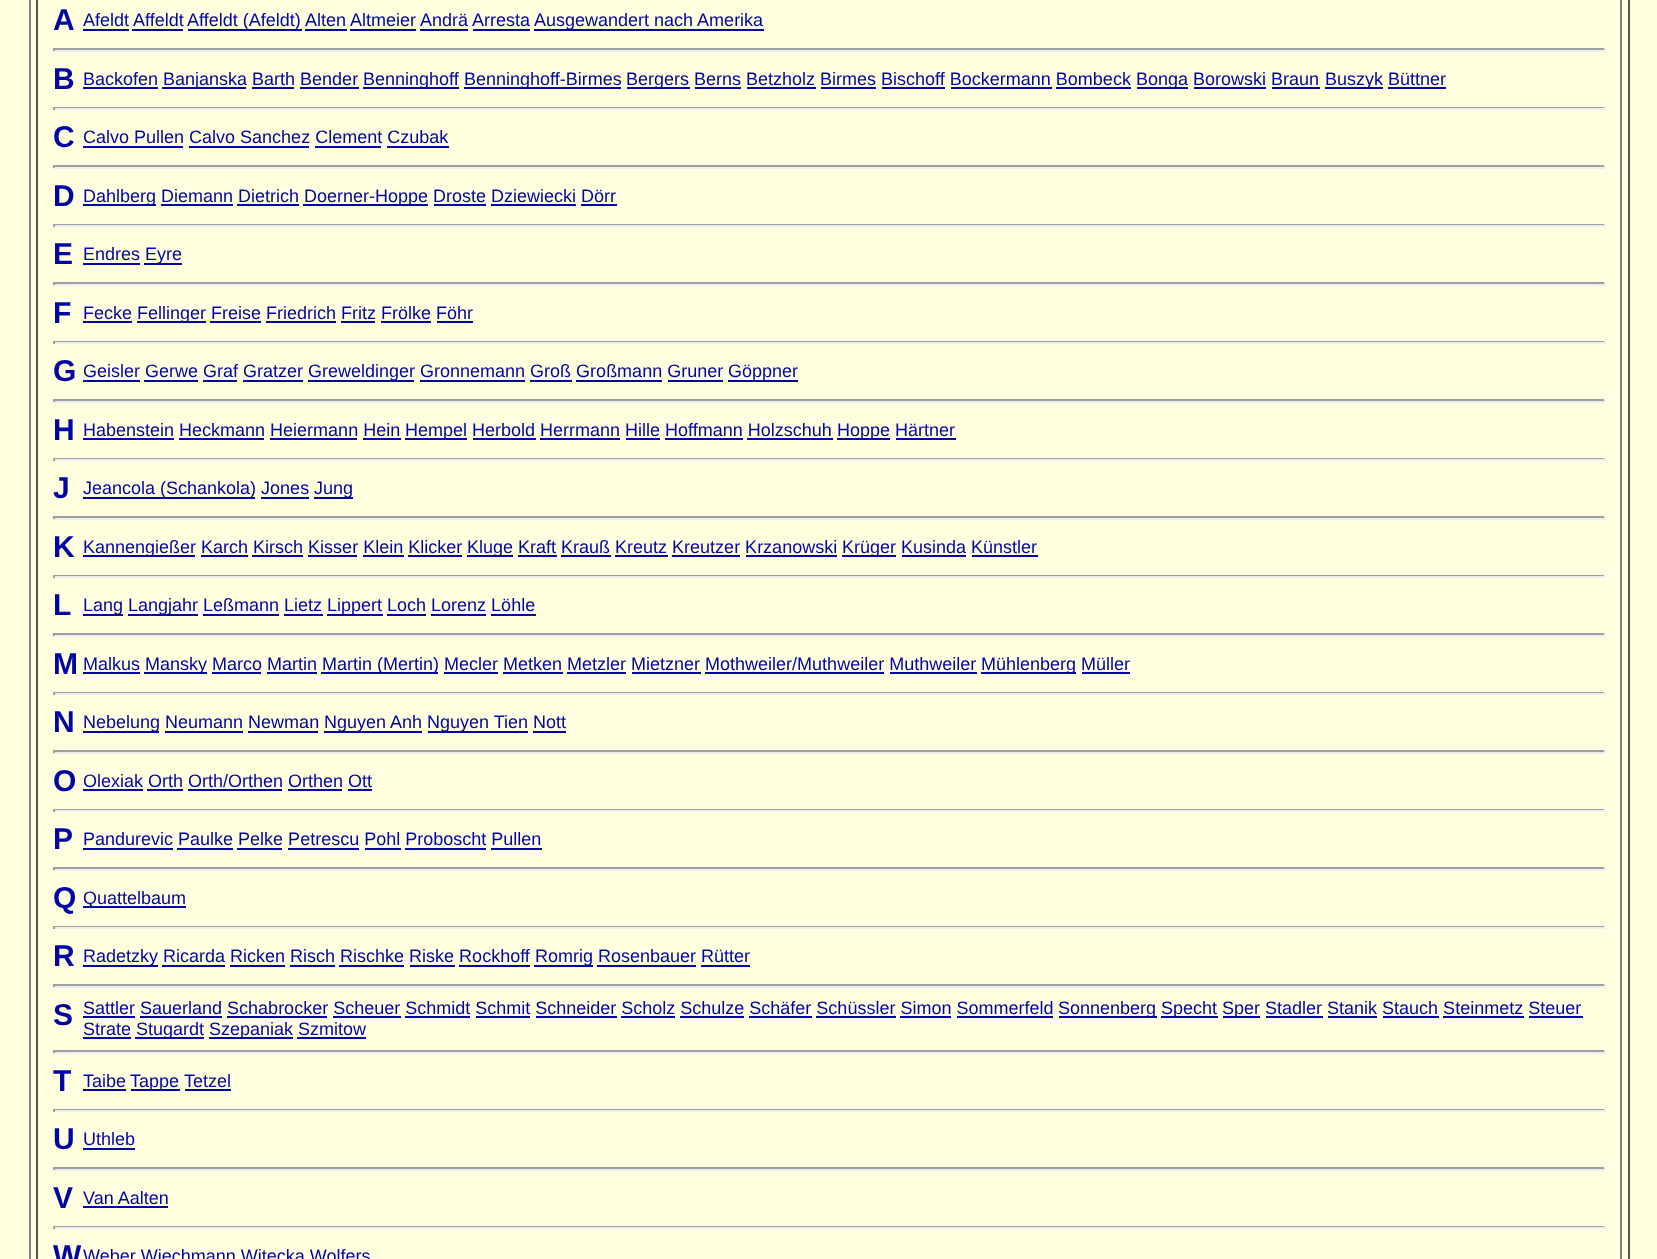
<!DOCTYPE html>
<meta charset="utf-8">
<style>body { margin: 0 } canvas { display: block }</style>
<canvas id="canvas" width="1657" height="1259"></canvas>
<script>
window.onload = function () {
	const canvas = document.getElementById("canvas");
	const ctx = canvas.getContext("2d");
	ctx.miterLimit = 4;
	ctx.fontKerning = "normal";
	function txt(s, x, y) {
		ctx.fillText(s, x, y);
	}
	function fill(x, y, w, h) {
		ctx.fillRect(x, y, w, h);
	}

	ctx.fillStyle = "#FFFFE0";
	fill(0, 0, 1657, 1259);
	ctx.fillStyle = "#555555";
	fill(1628, 0, 2, 1259);
	ctx.fillStyle = "#808080";
	fill(29, 0, 2, 1259);
	fill(1620, 0, 2, 1259);
	ctx.fillStyle = "#555555";
	fill(36, 0, 2, 1259);
	ctx.fillStyle = "#0005A3";
	fill(83, 29, 46, 2);
	fill(132, 29, 51, 2);
	fill(188, 29, 114, 2);
	fill(305, 29, 42, 2);
	fill(350, 29, 66, 2);
	fill(420, 29, 48, 2);
	fill(473, 29, 57, 2);
	fill(534, 29, 230, 2);
	ctx.fillStyle = "#9F9F9F";
	fill(53, 48, 1552, 2);
	ctx.fillStyle = "#EEEEEE";
	fill(1604, 48, 2, 3);
	fill(53, 50, 1552, 2);
	ctx.fillStyle = "#9F9F9F";
	fill(53, 48, 2, 3);
	ctx.fillStyle = "#0005A3";
	fill(83, 87, 75, 2);
	fill(162, 87, 84, 2);
	fill(363, 87, 96, 2);
	fill(464, 87, 157, 2);
	fill(627, 87, 63, 2);
	fill(1137, 87, 51, 2);
	fill(1325, 87, 58, 2);
	fill(252, 87, 42, 2);
	fill(300, 87, 59, 2);
	fill(695, 87, 46, 2);
	fill(747, 87, 69, 2);
	fill(821, 87, 55, 2);
	fill(882, 87, 63, 2);
	fill(951, 87, 101, 2);
	fill(1056, 87, 75, 2);
	fill(1194, 87, 72, 2);
	fill(1272, 87, 48, 2);
	fill(1388, 87, 58, 2);
	ctx.fillStyle = "#9F9F9F";
	fill(53, 107, 1552, 1);
	ctx.fillStyle = "#EEEEEE";
	fill(1604, 107, 2, 3);
	fill(53, 108, 1552, 2);
	ctx.fillStyle = "#9F9F9F";
	fill(53, 107, 2, 3);
	ctx.fillStyle = "#0005A3";
	fill(83, 146, 100, 2);
	fill(189, 146, 120, 2);
	fill(315, 146, 66, 2);
	fill(387, 146, 62, 2);
	ctx.fillStyle = "#9F9F9F";
	fill(53, 165, 1552, 2);
	ctx.fillStyle = "#EEEEEE";
	fill(1604, 165, 2, 3);
	fill(53, 167, 1552, 2);
	ctx.fillStyle = "#9F9F9F";
	fill(53, 165, 2, 3);
	ctx.fillStyle = "#0005A3";
	fill(83, 204, 73, 2);
	fill(303, 204, 125, 2);
	fill(161, 204, 72, 2);
	fill(237, 204, 62, 2);
	fill(434, 204, 52, 2);
	fill(491, 204, 85, 2);
	fill(581, 204, 36, 2);
	ctx.fillStyle = "#9F9F9F";
	fill(53, 224, 1552, 1);
	ctx.fillStyle = "#EEEEEE";
	fill(1604, 224, 2, 3);
	fill(53, 225, 1552, 2);
	ctx.fillStyle = "#9F9F9F";
	fill(53, 224, 2, 3);
	ctx.fillStyle = "#0005A3";
	fill(83, 263, 57, 2);
	fill(144, 263, 38, 2);
	ctx.fillStyle = "#9F9F9F";
	fill(53, 282, 1552, 2);
	ctx.fillStyle = "#EEEEEE";
	fill(1604, 282, 2, 3);
	fill(53, 284, 1552, 2);
	ctx.fillStyle = "#9F9F9F";
	fill(53, 282, 2, 3);
	ctx.fillStyle = "#0005A3";
	fill(83, 321, 49, 2);
	fill(137, 321, 69, 2);
	fill(210, 321, 51, 2);
	fill(266, 321, 70, 2);
	fill(341, 321, 34, 2);
	fill(381, 321, 50, 2);
	fill(437, 321, 36, 2);
	ctx.fillStyle = "#9F9F9F";
	fill(53, 341, 1552, 1);
	ctx.fillStyle = "#EEEEEE";
	fill(1604, 341, 2, 3);
	fill(53, 342, 1552, 2);
	ctx.fillStyle = "#9F9F9F";
	fill(53, 341, 2, 3);
	ctx.fillStyle = "#0005A3";
	fill(83, 380, 57, 2);
	fill(308, 380, 106, 2);
	fill(728, 380, 70, 2);
	fill(144, 380, 54, 2);
	fill(203, 380, 34, 2);
	fill(243, 380, 60, 2);
	fill(420, 380, 105, 2);
	fill(530, 380, 42, 2);
	fill(576, 380, 86, 2);
	fill(668, 380, 55, 2);
	ctx.fillStyle = "#9F9F9F";
	fill(53, 399, 1552, 2);
	ctx.fillStyle = "#EEEEEE";
	fill(1604, 399, 2, 3);
	fill(53, 401, 1552, 2);
	ctx.fillStyle = "#9F9F9F";
	fill(53, 399, 2, 3);
	ctx.fillStyle = "#0005A3";
	fill(83, 438, 91, 2);
	fill(405, 438, 62, 2);
	fill(837, 438, 53, 2);
	fill(179, 438, 85, 2);
	fill(270, 438, 87, 2);
	fill(363, 438, 38, 2);
	fill(473, 438, 63, 2);
	fill(540, 438, 80, 2);
	fill(626, 438, 34, 2);
	fill(665, 438, 78, 2);
	fill(747, 438, 86, 2);
	fill(896, 438, 60, 2);
	ctx.fillStyle = "#9F9F9F";
	fill(53, 458, 1552, 1);
	ctx.fillStyle = "#EEEEEE";
	fill(1604, 458, 2, 3);
	fill(53, 459, 1552, 2);
	ctx.fillStyle = "#9F9F9F";
	fill(53, 458, 2, 3);
	ctx.fillStyle = "#0005A3";
	fill(83, 497, 172, 2);
	fill(314, 497, 39, 2);
	fill(261, 497, 48, 2);
	ctx.fillStyle = "#9F9F9F";
	fill(53, 516, 1552, 2);
	ctx.fillStyle = "#EEEEEE";
	fill(1604, 516, 2, 3);
	fill(53, 518, 1552, 2);
	ctx.fillStyle = "#9F9F9F";
	fill(53, 516, 2, 3);
	ctx.fillStyle = "#0005A3";
	fill(83, 555, 112, 2);
	fill(467, 555, 46, 2);
	fill(842, 555, 54, 2);
	fill(201, 555, 47, 2);
	fill(252, 555, 51, 2);
	fill(308, 555, 49, 2);
	fill(363, 555, 41, 2);
	fill(408, 555, 54, 2);
	fill(518, 555, 39, 2);
	fill(561, 555, 50, 2);
	fill(615, 555, 53, 2);
	fill(672, 555, 68, 2);
	fill(746, 555, 91, 2);
	fill(902, 555, 64, 2);
	fill(972, 555, 66, 2);
	ctx.fillStyle = "#9F9F9F";
	fill(53, 575, 1552, 1);
	ctx.fillStyle = "#EEEEEE";
	fill(1604, 575, 2, 3);
	fill(53, 576, 1552, 2);
	ctx.fillStyle = "#9F9F9F";
	fill(53, 575, 2, 3);
	ctx.fillStyle = "#0005A3";
	fill(83, 614, 40, 2);
	fill(128, 614, 70, 2);
	fill(327, 614, 56, 2);
	fill(203, 614, 76, 2);
	fill(284, 614, 39, 2);
	fill(387, 614, 39, 2);
	fill(431, 614, 55, 2);
	fill(491, 614, 45, 2);
	ctx.fillStyle = "#9F9F9F";
	fill(53, 633, 1552, 2);
	ctx.fillStyle = "#EEEEEE";
	fill(1604, 633, 2, 3);
	fill(53, 635, 1552, 2);
	ctx.fillStyle = "#9F9F9F";
	fill(53, 633, 2, 3);
	ctx.fillStyle = "#0005A3";
	fill(83, 672, 57, 2);
	fill(144, 672, 63, 2);
	fill(321, 672, 117, 2);
	fill(981, 672, 95, 2);
	fill(212, 672, 49, 2);
	fill(267, 672, 50, 2);
	fill(444, 672, 54, 2);
	fill(503, 672, 60, 2);
	fill(567, 672, 59, 2);
	fill(632, 672, 69, 2);
	fill(705, 672, 179, 2);
	fill(890, 672, 87, 2);
	fill(1082, 672, 48, 2);
	ctx.fillStyle = "#9F9F9F";
	fill(53, 692, 1552, 1);
	ctx.fillStyle = "#EEEEEE";
	fill(1604, 692, 2, 3);
	fill(53, 693, 1552, 2);
	ctx.fillStyle = "#9F9F9F";
	fill(53, 692, 2, 3);
	ctx.fillStyle = "#0005A3";
	fill(83, 731, 76, 2);
	fill(324, 731, 98, 2);
	fill(428, 731, 100, 2);
	fill(165, 731, 78, 2);
	fill(248, 731, 70, 2);
	fill(533, 731, 33, 2);
	ctx.fillStyle = "#9F9F9F";
	fill(53, 750, 1552, 2);
	ctx.fillStyle = "#EEEEEE";
	fill(1604, 750, 2, 3);
	fill(53, 752, 1552, 2);
	ctx.fillStyle = "#9F9F9F";
	fill(53, 750, 2, 3);
	ctx.fillStyle = "#0005A3";
	fill(83, 789, 60, 2);
	fill(147, 789, 36, 2);
	fill(188, 789, 94, 2);
	fill(288, 789, 54, 2);
	fill(348, 789, 24, 2);
	ctx.fillStyle = "#9F9F9F";
	fill(53, 809, 1552, 1);
	ctx.fillStyle = "#EEEEEE";
	fill(1604, 809, 2, 3);
	fill(53, 810, 1552, 2);
	ctx.fillStyle = "#9F9F9F";
	fill(53, 809, 2, 3);
	ctx.fillStyle = "#0005A3";
	fill(83, 848, 90, 2);
	fill(177, 848, 56, 2);
	fill(237, 848, 45, 2);
	fill(288, 848, 71, 2);
	fill(365, 848, 36, 2);
	fill(405, 848, 81, 2);
	fill(491, 848, 51, 2);
	ctx.fillStyle = "#9F9F9F";
	fill(53, 867, 1552, 2);
	ctx.fillStyle = "#EEEEEE";
	fill(1604, 867, 2, 3);
	fill(53, 869, 1552, 2);
	ctx.fillStyle = "#9F9F9F";
	fill(53, 867, 2, 3);
	ctx.fillStyle = "#0005A3";
	fill(83, 906, 103, 2);
	ctx.fillStyle = "#9F9F9F";
	fill(53, 926, 1552, 1);
	ctx.fillStyle = "#EEEEEE";
	fill(1604, 926, 2, 3);
	fill(53, 927, 1552, 2);
	ctx.fillStyle = "#9F9F9F";
	fill(53, 926, 2, 3);
	ctx.fillStyle = "#0005A3";
	fill(83, 965, 75, 2);
	fill(534, 965, 59, 2);
	fill(162, 965, 63, 2);
	fill(230, 965, 55, 2);
	fill(290, 965, 45, 2);
	fill(339, 965, 65, 2);
	fill(410, 965, 45, 2);
	fill(459, 965, 71, 2);
	fill(597, 965, 99, 2);
	fill(701, 965, 49, 2);
	ctx.fillStyle = "#9F9F9F";
	fill(53, 984, 1552, 2);
	ctx.fillStyle = "#EEEEEE";
	fill(1604, 984, 2, 3);
	fill(53, 986, 1552, 2);
	ctx.fillStyle = "#9F9F9F";
	fill(53, 984, 2, 3);
	ctx.fillStyle = "#0005A3";
	fill(83, 1016, 52, 2);
	fill(1059, 1016, 98, 2);
	fill(1161, 1016, 57, 2);
	fill(1223, 1016, 37, 2);
	fill(140, 1016, 82, 2);
	fill(227, 1016, 100, 2);
	fill(333, 1016, 68, 2);
	fill(405, 1016, 65, 2);
	fill(476, 1016, 54, 2);
	fill(536, 1016, 81, 2);
	fill(621, 1016, 54, 2);
	fill(680, 1016, 64, 2);
	fill(749, 1016, 63, 2);
	fill(816, 1016, 80, 2);
	fill(900, 1016, 51, 2);
	fill(957, 1016, 96, 2);
	fill(1266, 1016, 57, 2);
	fill(1328, 1016, 49, 2);
	fill(1383, 1016, 56, 2);
	fill(1443, 1016, 81, 2);
	fill(1529, 1016, 54, 2);
	fill(83, 1037, 48, 2);
	fill(135, 1037, 69, 2);
	fill(209, 1037, 84, 2);
	fill(297, 1037, 69, 2);
	ctx.fillStyle = "#9F9F9F";
	fill(53, 1050, 1552, 2);
	ctx.fillStyle = "#EEEEEE";
	fill(1604, 1050, 2, 3);
	fill(53, 1052, 1552, 2);
	ctx.fillStyle = "#9F9F9F";
	fill(53, 1050, 2, 3);
	ctx.fillStyle = "#0005A3";
	fill(83, 1089, 43, 2);
	fill(131, 1089, 49, 2);
	fill(185, 1089, 46, 2);
	ctx.fillStyle = "#9F9F9F";
	fill(53, 1109, 1552, 1);
	ctx.fillStyle = "#EEEEEE";
	fill(1604, 1109, 2, 3);
	fill(53, 1110, 1552, 2);
	ctx.fillStyle = "#9F9F9F";
	fill(53, 1109, 2, 3);
	ctx.fillStyle = "#0005A3";
	fill(83, 1148, 52, 2);
	ctx.fillStyle = "#9F9F9F";
	fill(53, 1167, 1552, 2);
	ctx.fillStyle = "#EEEEEE";
	fill(1604, 1167, 2, 3);
	fill(53, 1169, 1552, 2);
	ctx.fillStyle = "#9F9F9F";
	fill(53, 1167, 2, 3);
	ctx.fillStyle = "#0005A3";
	fill(83, 1206, 85, 2);
	ctx.fillStyle = "#9F9F9F";
	fill(53, 1226, 1552, 1);
	ctx.fillStyle = "#EEEEEE";
	fill(1604, 1226, 2, 3);
	fill(53, 1227, 1552, 2);
	ctx.fillStyle = "#9F9F9F";
	fill(53, 1226, 2, 3);
	ctx.font = "bold 30px Liberation Sans";
	ctx.fillStyle = "#0005A3";
	txt("A", 53, 30);
	ctx.font = "18px Liberation Sans";
	txt("Afeldt", 83, 26);
	txt("Affeldt", 133, 26);
	txt("Affeldt (Afeldt)", 187, 26);
	txt("Alten", 305, 26);
	txt("Altmeier", 350, 26);
	txt("Andrä", 420, 26);
	txt("Arresta", 472, 26);
	txt("Ausgewandert nach Amerika", 534, 26);
	ctx.font = "bold 30px Liberation Sans";
	txt("B", 53, 89);
	ctx.font = "18px Liberation Sans";
	txt("Backofen", 83, 85);
	txt("Banjanska Barth Bender", 163, 85);
	txt("Benninghoff", 363, 85);
	txt("Benninghoff-Birmes", 464, 85);
	txt("Bergers Berns Betzholz Birmes Bischoff Bockermann Bombeck", 626, 85);
	txt("Bonga Borowski Braun", 1136, 85);
	txt("Buszyk Büttner", 1325, 85);
	ctx.font = "bold 30px Liberation Sans";
	txt("C", 53, 147);
	ctx.font = "18px Liberation Sans";
	txt("Calvo Pullen Calvo Sanchez Clement Czubak", 83, 143);
	ctx.font = "bold 30px Liberation Sans";
	txt("D", 53, 206);
	ctx.font = "18px Liberation Sans";
	txt("Dahlberg Diemann Dietrich", 83, 202);
	txt("Doerner-Hoppe Droste Dziewiecki Dörr", 304, 202);
	ctx.font = "bold 30px Liberation Sans";
	txt("E", 53, 264);
	ctx.font = "18px Liberation Sans";
	txt("Endres", 83, 260);
	txt("Eyre", 145, 260);
	ctx.font = "bold 30px Liberation Sans";
	txt("F", 53, 323);
	ctx.font = "18px Liberation Sans";
	txt("Fecke", 83, 319);
	txt("Fellinger Freise Friedrich Fritz Frölke Föhr", 137, 319);
	ctx.font = "bold 30px Liberation Sans";
	txt("G", 53, 381);
	ctx.font = "18px Liberation Sans";
	txt("Geisler Gerwe Graf Gratzer", 83, 377);
	txt("Greweldinger Gronnemann Groß Großmann Gruner", 308, 377);
	txt("Göppner", 728, 377);
	ctx.font = "bold 30px Liberation Sans";
	txt("H", 53, 440);
	ctx.font = "18px Liberation Sans";
	txt("Habenstein Heckmann Heiermann Hein", 83, 436);
	txt("Hempel Herbold Herrmann Hille Hoffmann Holzschuh", 405, 436);
	txt("Hoppe Härtner", 837, 436);
	ctx.font = "bold 30px Liberation Sans";
	txt("J", 53, 498);
	ctx.font = "18px Liberation Sans";
	txt("Jeancola (Schankola) Jones", 83, 494);
	txt("Jung", 314, 494);
	ctx.font = "bold 30px Liberation Sans";
	txt("K", 53, 557);
	ctx.font = "18px Liberation Sans";
	txt("Kannengießer Karch Kirsch Kisser Klein Klicker", 83, 553);
	txt("Kluge Kraft Krauß Kreutz Kreutzer Krzanowski", 467, 553);
	txt("Krüger Kusinda Künstler", 842, 553);
	ctx.font = "bold 30px Liberation Sans";
	txt("L", 53, 615);
	ctx.font = "18px Liberation Sans";
	txt("Lang", 83, 611);
	txt("Langjahr Leßmann Lietz", 128, 611);
	txt("Lippert Loch Lorenz Löhle", 327, 611);
	ctx.font = "bold 30px Liberation Sans";
	txt("M", 53, 674);
	ctx.font = "18px Liberation Sans";
	txt("Malkus", 83, 670);
	txt("Mansky Marco Martin", 145, 670);
	txt("Martin (Mertin) Mecler Metken Metzler Mietzner Mothweiler/Muthweiler Muthweiler", 322, 670);
	txt("Mühlenberg Müller", 981, 670);
	ctx.font = "bold 30px Liberation Sans";
	txt("N", 53, 732);
	ctx.font = "18px Liberation Sans";
	txt("Nebelung Neumann Newman", 83, 728);
	txt("Nguyen Anh", 324, 728);
	txt("Nguyen Tien Nott", 427, 728);
	ctx.font = "bold 30px Liberation Sans";
	txt("O", 53, 791);
	ctx.font = "18px Liberation Sans";
	txt("Olexiak Orth Orth/Orthen Orthen Ott", 83, 787);
	ctx.font = "bold 30px Liberation Sans";
	txt("P", 53, 849);
	ctx.font = "18px Liberation Sans";
	txt("Pandurevic Paulke Pelke Petrescu Pohl Proboscht Pullen", 83, 845);
	ctx.font = "bold 30px Liberation Sans";
	txt("Q", 53, 908);
	ctx.font = "18px Liberation Sans";
	txt("Quattelbaum", 83, 904);
	ctx.font = "bold 30px Liberation Sans";
	txt("R", 53, 966);
	ctx.font = "18px Liberation Sans";
	txt("Radetzky Ricarda Ricken Risch Rischke Riske Rockhoff", 83, 962);
	txt("Romrig Rosenbauer Rütter", 535, 962);
	ctx.font = "bold 30px Liberation Sans";
	txt("S", 53, 1025);
	ctx.font = "18px Liberation Sans";
	txt("Sattler Sauerland Schabrocker Scheuer Schmidt Schmit Schneider Scholz Schulze Schäfer Schüssler Simon Sommerfeld", 83, 1014);
	txt("Sonnenberg", 1058, 1014);
	txt("Specht", 1161, 1014);
	txt("Sper Stadler Stanik Stauch Steinmetz Steuer", 1222, 1014);
	txt("Strate", 83, 1035);
	txt("Stugardt", 136, 1035);
	txt("Szepaniak Szmitow", 209, 1035);
	ctx.font = "bold 30px Liberation Sans";
	txt("T", 53, 1091);
	ctx.font = "18px Liberation Sans";
	txt("Taibe", 83, 1087);
	txt("Tappe", 130, 1087);
	txt("Tetzel", 184, 1087);
	ctx.font = "bold 30px Liberation Sans";
	txt("U", 53, 1149);
	ctx.font = "18px Liberation Sans";
	txt("Uthleb", 83, 1145);
	ctx.font = "bold 30px Liberation Sans";
	txt("V", 53, 1208);
	ctx.font = "18px Liberation Sans";
	txt("Van Aalten", 83, 1204);
	ctx.font = "bold 30px Liberation Sans";
	txt("W", 53, 1266);
	ctx.font = "18px Liberation Sans";
	txt("Weber Wiechmann Witecka Wolfers", 83, 1262);
};
</script>
